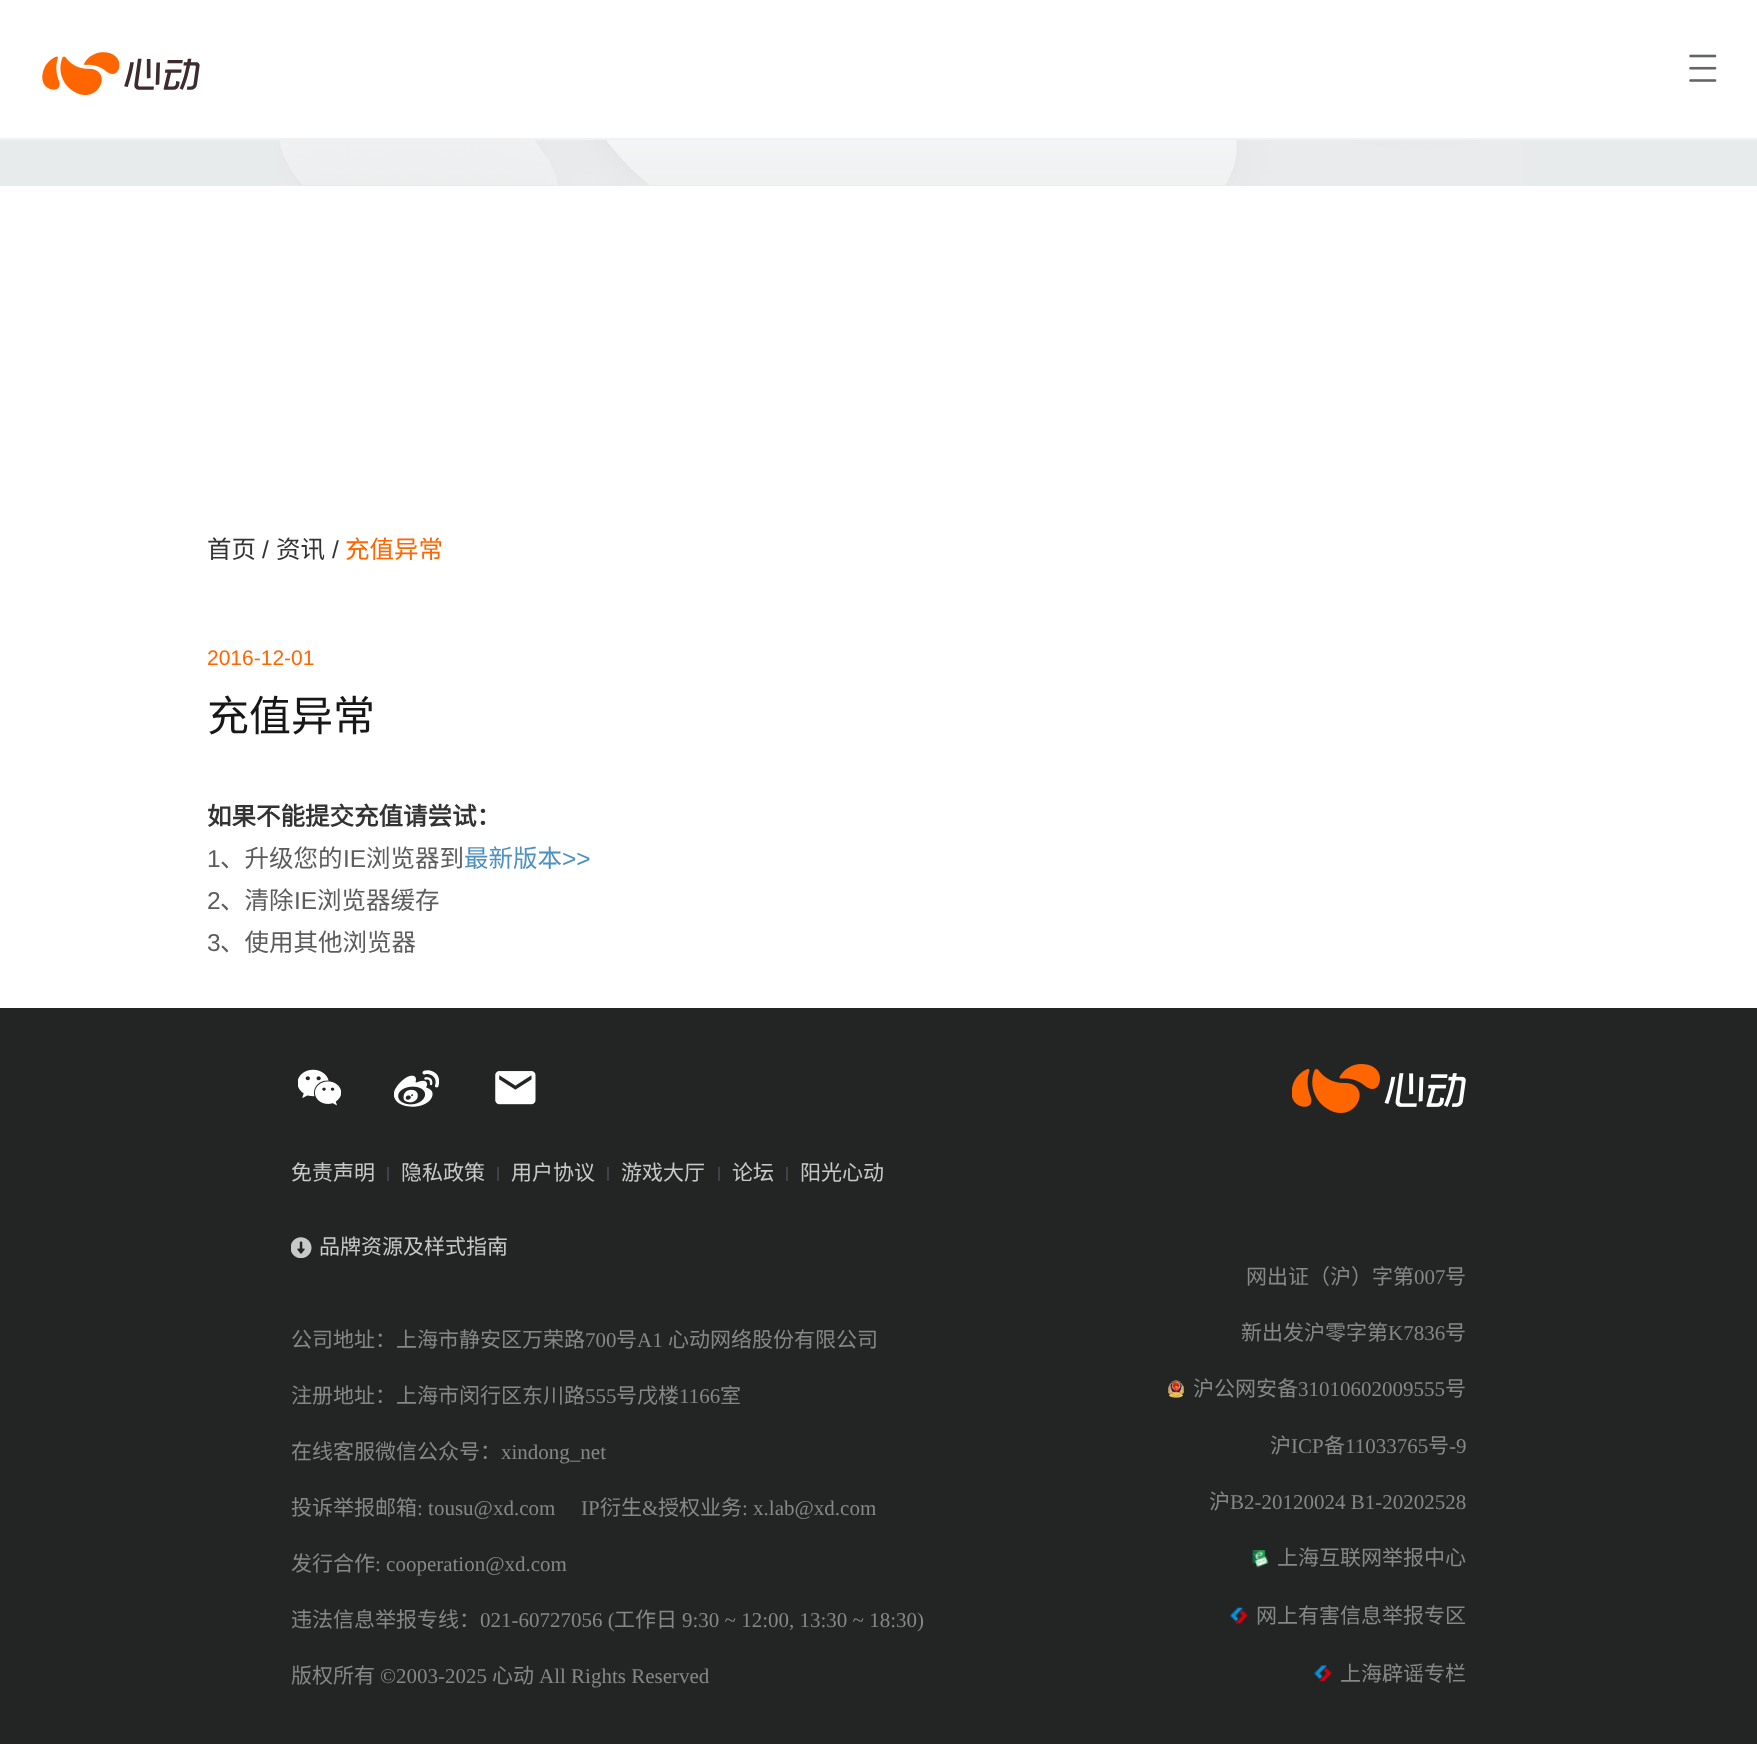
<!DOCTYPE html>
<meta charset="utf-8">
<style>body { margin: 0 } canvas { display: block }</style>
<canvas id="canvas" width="1757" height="1744"></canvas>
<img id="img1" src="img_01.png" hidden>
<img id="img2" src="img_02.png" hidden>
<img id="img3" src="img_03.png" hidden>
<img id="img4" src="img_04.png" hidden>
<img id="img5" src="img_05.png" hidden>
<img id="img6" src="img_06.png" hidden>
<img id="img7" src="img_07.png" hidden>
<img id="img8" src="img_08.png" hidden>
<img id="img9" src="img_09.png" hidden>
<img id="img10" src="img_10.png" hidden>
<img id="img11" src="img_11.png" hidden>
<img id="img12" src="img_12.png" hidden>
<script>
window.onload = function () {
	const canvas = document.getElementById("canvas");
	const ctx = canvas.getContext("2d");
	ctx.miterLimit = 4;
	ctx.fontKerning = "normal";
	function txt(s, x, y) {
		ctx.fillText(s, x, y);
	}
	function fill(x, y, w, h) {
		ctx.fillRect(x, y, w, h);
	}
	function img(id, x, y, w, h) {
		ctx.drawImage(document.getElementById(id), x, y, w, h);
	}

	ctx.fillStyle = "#FFFFFF";
	fill(0, 0, 1757, 1744);
	ctx.fillStyle = "#EFF1F2";
	fill(0, 138, 1757, 2);
	img("img1", 42, 52, 78, 43);
	img("img2", 1689, 54, 28, 28);
	ctx.fillStyle = "#E8EBEC";
	fill(0, 140, 1757, 46);
	img("img3", 278, 140, 1245, 45);
	ctx.fillStyle = "#232525";
	fill(0, 1008, 1757, 736);
	img("img4", 298, 1069, 43, 37);
	img("img5", 394, 1070, 45, 37);
	img("img6", 495, 1071, 41, 34);
	img("img7", 1292, 1064, 174, 49);
	ctx.fillStyle = "#414249";
	fill(387, 1167, 2, 14);
	fill(497, 1167, 2, 14);
	fill(607, 1167, 2, 14);
	fill(718, 1167, 2, 14);
	fill(786, 1167, 2, 14);
	img("img8", 291, 1237, 21, 21);
	img("img9", 1168, 1380, 16, 18);
	img("img10", 1252, 1550, 17, 18);
	img("img11", 1230, 1607, 18, 17);
	img("img12", 1314, 1665, 18, 17);
	ctx.font = "44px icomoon";
	ctx.fillStyle = "#3E2B2E";
	txt("🗹", 42, 93);
	ctx.font = "24.5px Noto Sans CJK SC";
	ctx.fillStyle = "#333333";
	txt("首页", 207, 558);
	ctx.font = "24.5px Liberation Sans";
	txt("/", 262, 558);
	ctx.font = "24.5px Noto Sans CJK SC";
	txt("资讯", 276, 558);
	ctx.font = "24.5px Liberation Sans";
	txt("/", 332, 558);
	ctx.font = "24.5px Noto Sans CJK SC";
	ctx.fillStyle = "#FF6600";
	txt("充值异常", 345, 558);
	ctx.font = "21px Liberation Sans";
	txt("2016-12-01", 207, 665);
	ctx.font = "42px Noto Sans CJK SC";
	ctx.fillStyle = "#17171A";
	txt("充值异常", 207, 731);
	ctx.font = "bold 24.5px Noto Sans CJK SC";
	ctx.fillStyle = "#333333";
	txt("如果不能提交充值请尝试：", 207, 825);
	ctx.font = "24.5px Liberation Sans";
	ctx.fillStyle = "#5C5C5C";
	txt("1", 207, 867);
	ctx.font = "24.5px Noto Sans CJK SC";
	txt("、升级您的", 220, 867);
	ctx.font = "24.5px Liberation Sans";
	txt("IE", 343, 867);
	ctx.font = "24.5px Noto Sans CJK SC";
	txt("浏览器到", 366, 867);
	ctx.fillStyle = "#4E90C0";
	txt("最新版本", 464, 867);
	ctx.font = "24.5px Liberation Sans";
	txt(">>", 562, 867);
	ctx.fillStyle = "#5C5C5C";
	txt("2", 207, 909);
	ctx.font = "24.5px Noto Sans CJK SC";
	txt("、清除", 220, 909);
	ctx.font = "24.5px Liberation Sans";
	txt("IE", 294, 909);
	ctx.font = "24.5px Noto Sans CJK SC";
	txt("浏览器缓存", 317, 909);
	ctx.font = "24.5px Liberation Sans";
	txt("3", 207, 951);
	ctx.font = "24.5px Noto Sans CJK SC";
	txt("、使用其他浏览器", 220, 951);
	ctx.font = "21px Noto Sans CJK SC";
	ctx.fillStyle = "#C8C9C9";
	txt("免责声明", 291, 1180);
	txt("隐私政策", 401, 1180);
	txt("用户协议", 511, 1180);
	txt("游戏大厅", 621, 1180);
	txt("论坛", 732, 1180);
	txt("阳光心动", 800, 1180);
	txt("品牌资源及样式指南", 319, 1254);
	ctx.fillStyle = "#868787";
	txt("公司地址：上海市静安区万荣路", 291, 1347);
	ctx.font = "21px Liberation Serif";
	txt("700", 585, 1347);
	ctx.font = "21px Noto Sans CJK SC";
	txt("号", 616, 1347);
	ctx.font = "21px Liberation Serif";
	txt("A1", 637, 1347);
	ctx.font = "21px Noto Sans CJK SC";
	txt("心动网络股份有限公司", 668, 1347);
	txt("注册地址：上海市闵行区东川路", 291, 1403);
	ctx.font = "21px Liberation Serif";
	txt("555", 585, 1403);
	ctx.font = "21px Noto Sans CJK SC";
	txt("号戊楼", 616, 1403);
	ctx.font = "21px Liberation Serif";
	txt("1166", 679, 1403);
	ctx.font = "21px Noto Sans CJK SC";
	txt("室", 720, 1403);
	txt("在线客服微信公众号：", 291, 1459);
	ctx.font = "21px Liberation Serif";
	txt("xindong_net", 501, 1459);
	ctx.font = "21px Noto Sans CJK SC";
	txt("投诉举报邮箱", 291, 1515);
	ctx.font = "21px Liberation Serif";
	txt(": tousu@xd.com", 417, 1515);
	txt("IP", 581, 1515);
	ctx.font = "21px Noto Sans CJK SC";
	txt("衍生", 600, 1515);
	ctx.font = "21px Liberation Serif";
	txt("&", 642, 1515);
	ctx.font = "21px Noto Sans CJK SC";
	txt("授权业务", 658, 1515);
	ctx.font = "21px Liberation Serif";
	txt(": x.lab@xd.com", 742, 1515);
	ctx.font = "21px Noto Sans CJK SC";
	txt("发行合作", 291, 1571);
	ctx.font = "21px Liberation Serif";
	txt(": cooperation@xd.com", 375, 1571);
	ctx.font = "21px Noto Sans CJK SC";
	txt("违法信息举报专线：", 291, 1627);
	ctx.font = "21px Liberation Serif";
	txt("021-60727056 (", 480, 1627);
	ctx.font = "21px Noto Sans CJK SC";
	txt("工作日", 614, 1627);
	ctx.font = "21px Liberation Serif";
	txt("9:30 ~ 12:00, 13:30 ~ 18:30)", 682, 1627);
	ctx.font = "21px Noto Sans CJK SC";
	txt("网出证（沪）字第", 1246, 1284);
	ctx.font = "21px Liberation Serif";
	txt("007", 1414, 1284);
	ctx.font = "21px Noto Sans CJK SC";
	txt("号", 1445, 1284);
	txt("新出发沪零字第", 1241, 1340);
	ctx.font = "21px Liberation Serif";
	txt("K7836", 1388, 1340);
	ctx.font = "21px Noto Sans CJK SC";
	txt("号", 1445, 1340);
	txt("沪公网安备", 1193, 1396);
	ctx.font = "21px Liberation Serif";
	txt("31010602009555", 1298, 1396);
	ctx.font = "21px Noto Sans CJK SC";
	txt("号", 1445, 1396);
	txt("沪", 1270, 1453);
	ctx.font = "21px Liberation Serif";
	txt("ICP", 1291, 1453);
	ctx.font = "21px Noto Sans CJK SC";
	txt("备", 1324, 1453);
	ctx.font = "21px Liberation Serif";
	txt("11033765", 1345, 1453);
	ctx.font = "21px Noto Sans CJK SC";
	txt("号", 1428, 1453);
	ctx.font = "21px Liberation Serif";
	txt("-9", 1449, 1453);
	ctx.font = "21px Noto Sans CJK SC";
	txt("沪", 1209, 1509);
	ctx.font = "21px Liberation Serif";
	txt("B2-20120024 B1-20202528", 1230, 1509);
	ctx.font = "21px Noto Sans CJK SC";
	txt("上海互联网举报中心", 1277, 1565);
	txt("网上有害信息举报专区", 1256, 1623);
	txt("上海辟谣专栏", 1340, 1681);
	txt("版权所有", 291, 1683);
	ctx.font = "21px Liberation Serif";
	txt("©2003-2025", 380, 1683);
	ctx.font = "21px Noto Sans CJK SC";
	txt("心动", 492, 1683);
	ctx.font = "21px Liberation Serif";
	txt("All Rights Reserved", 539, 1683);
};
</script>
